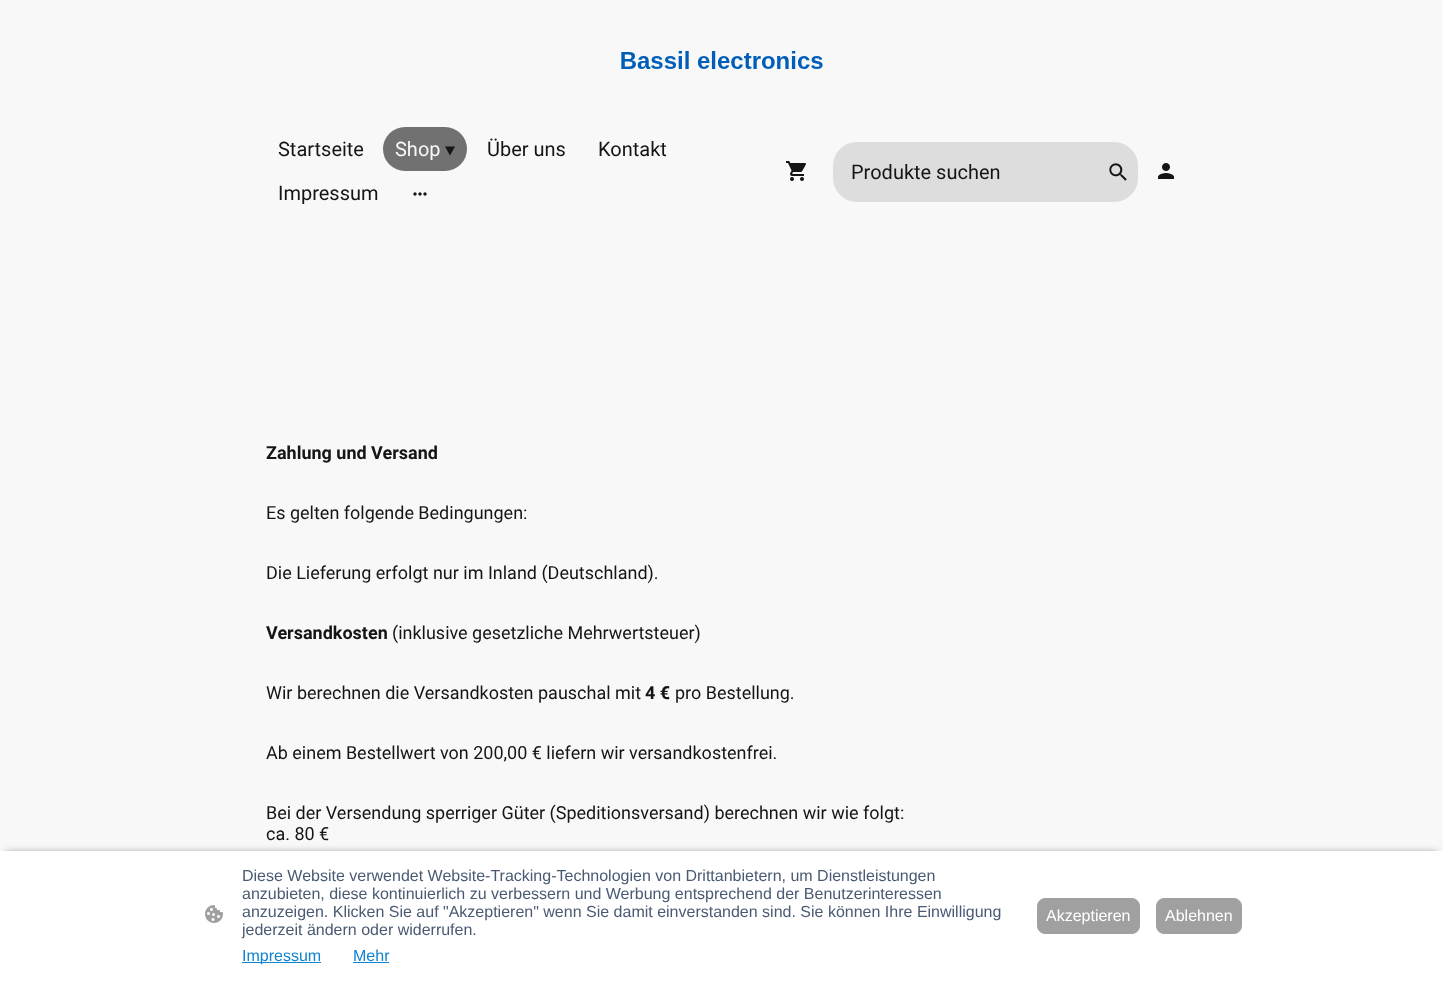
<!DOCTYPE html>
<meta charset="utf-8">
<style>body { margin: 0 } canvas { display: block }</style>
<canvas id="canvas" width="1443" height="981"></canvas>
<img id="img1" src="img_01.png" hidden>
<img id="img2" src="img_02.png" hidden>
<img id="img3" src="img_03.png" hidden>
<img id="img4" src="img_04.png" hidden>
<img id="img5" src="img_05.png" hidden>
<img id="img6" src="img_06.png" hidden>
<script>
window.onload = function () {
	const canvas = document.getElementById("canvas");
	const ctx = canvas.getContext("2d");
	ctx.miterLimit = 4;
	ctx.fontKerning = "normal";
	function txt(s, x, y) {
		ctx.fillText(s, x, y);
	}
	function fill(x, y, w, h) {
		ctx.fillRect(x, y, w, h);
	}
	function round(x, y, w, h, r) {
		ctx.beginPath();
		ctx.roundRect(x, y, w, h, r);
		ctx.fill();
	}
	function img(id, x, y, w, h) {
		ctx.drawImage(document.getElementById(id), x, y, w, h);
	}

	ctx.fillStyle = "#F8F8F8";
	fill(0, 0, 1443, 981);
	img("img1", 621, 51, 202, 18);
	ctx.fillStyle = "#717171";
	round(383, 127, 84, 44, 22);
	ctx.fillStyle = "#151515";
	ctx.beginPath();
	ctx.moveTo(455, 146.5);
	ctx.lineTo(450, 155.5);
	ctx.lineTo(445, 146.5);
	ctx.closePath();
	ctx.fill();
	img("img2", 413, 192, 14, 4);
	img("img3", 786, 161, 20, 20);
	ctx.fillStyle = "#DDDDDD";
	round(833, 142, 305, 60, 24);
	img("img4", 1109, 163, 18, 18);
	img("img5", 1158, 163, 16, 16);
	ctx.fillStyle = "rgba(0, 0, 0, 0.63)";
	ctx.filter = "blur(4px)";
	ctx.beginPath();
	ctx.rect(6, 854, 1431, 118);
	ctx.fill();
	ctx.filter = "none";
	ctx.fillStyle = "#FFFFFF";
	fill(0, 851, 1443, 130);
	img("img6", 205, 905, 18, 18);
	ctx.fillStyle = "#1183D1";
	fill(242, 962, 79, 1);
	fill(353, 962, 36, 1);
	ctx.fillStyle = "#A0A0A0";
	ctx.beginPath();
	ctx.roundRect(1037.5, 898.5, 102, 35, 7.5);
	ctx.fill();
	ctx.strokeStyle = "#A0A0A0";
	ctx.stroke();
	ctx.beginPath();
	ctx.roundRect(1156.5, 898.5, 85, 35, 7.5);
	ctx.fill();
	ctx.stroke();
	ctx.font = "20px Roboto";
	ctx.fillStyle = "#151515";
	txt("Startseite", 278, 156);
	ctx.fillStyle = "#F8F8F8";
	txt("Shop", 395, 156);
	ctx.fillStyle = "#151515";
	txt("Über uns", 487, 156);
	txt("Kontakt", 598, 156);
	txt("Impressum", 278, 200);
	txt("Produkte suchen", 851, 179);
	ctx.font = "bold 18px Roboto";
	txt("Zahlung und Versand", 266, 459);
	ctx.font = "18px Roboto";
	txt("Es gelten folgende Bedingungen:", 266, 519);
	txt("Die Lieferung erfolgt nur im Inland (Deutschland).", 266, 579);
	ctx.font = "bold 18px Roboto";
	txt("Versandkosten", 266, 639);
	ctx.font = "18px Roboto";
	txt("(inklusive gesetzliche Mehrwertsteuer)", 392, 639);
	txt("Wir berechnen die Versandkosten pauschal mit", 266, 699);
	ctx.font = "bold 18px Roboto";
	txt("4 €", 645, 699);
	ctx.font = "18px Roboto";
	txt("pro Bestellung.", 675, 699);
	txt("Ab einem Bestellwert von 200,00 € liefern wir versandkostenfrei.", 266, 759);
	txt("Bei der Versendung sperriger Güter (Speditionsversand) berechnen wir wie folgt:", 266, 819);
	txt("ca. 80 €", 266, 840);
	ctx.font = "16px Liberation Sans";
	ctx.fillStyle = "#4A5A73";
	txt("Diese Website verwendet Website-Tracking-Technologien von Drittanbietern, um Dienstleistungen", 242, 881);
	txt("anzubieten, diese kontinuierlich zu verbessern und Werbung entsprechend der Benutzerinteressen", 242, 899);
	txt("anzuzeigen. Klicken Sie auf \"Akzeptieren\" wenn Sie damit einverstanden sind. Sie können Ihre Einwilligung", 242, 917);
	txt("jederzeit ändern oder widerrufen.", 242, 935);
	ctx.fillStyle = "#1183D1";
	txt("Impressum", 242, 961);
	txt("Mehr", 353, 961);
	ctx.fillStyle = "#FFFFFF";
	txt("Akzeptieren", 1046, 921);
	txt("Ablehnen", 1165, 921);
};
</script>
